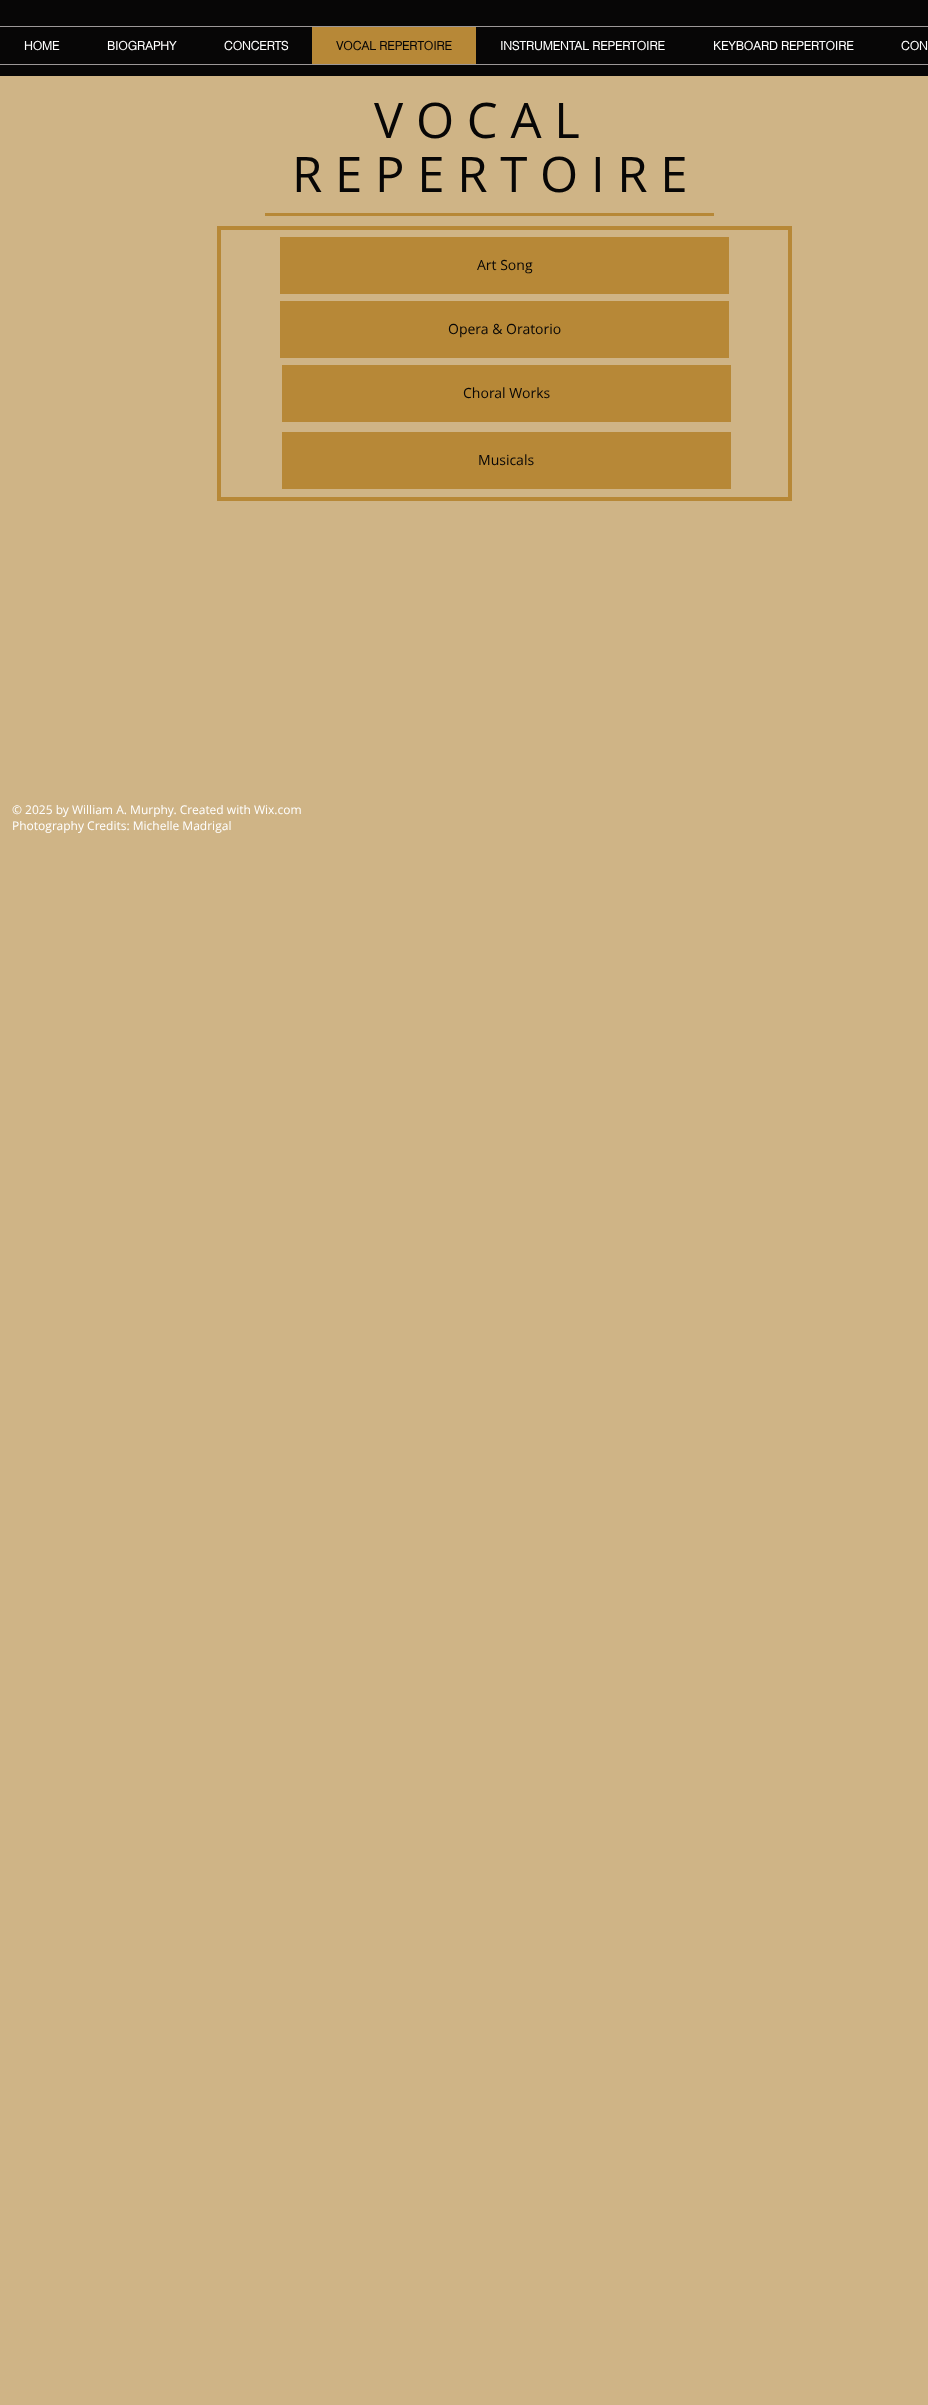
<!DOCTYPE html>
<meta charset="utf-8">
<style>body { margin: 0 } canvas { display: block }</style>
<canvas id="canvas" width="928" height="2405"></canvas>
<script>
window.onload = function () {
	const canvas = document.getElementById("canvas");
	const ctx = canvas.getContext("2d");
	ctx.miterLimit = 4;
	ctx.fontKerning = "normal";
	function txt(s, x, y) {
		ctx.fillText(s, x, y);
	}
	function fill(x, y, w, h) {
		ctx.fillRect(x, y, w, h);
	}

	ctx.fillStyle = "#CFB486";
	fill(0, 0, 928, 2405);
	ctx.fillStyle = "#070606";
	fill(0, 0, 928, 76);
	ctx.fillStyle = "#9C9797";
	fill(0, 26, 928, 1);
	fill(0, 64, 928, 1);
	ctx.fillStyle = "#B78837";
	fill(312, 27, 164, 37);
	fill(265, 213, 449, 3);
	ctx.strokeStyle = "#B78837";
	ctx.lineWidth = 4;
	ctx.strokeRect(219, 228, 571, 271);
	fill(280, 237, 449, 57);
	fill(280, 301, 449, 57);
	fill(282, 365, 449, 57);
	fill(282, 432, 449, 57);
	ctx.font = "bold 12px helvetica";
	ctx.fillStyle = "#FFFFFF";
	txt("HOME", 24, 50);
	txt("BIOGRAPHY", 107, 50);
	txt("CONCERTS", 224, 50);
	ctx.fillStyle = "#070606";
	txt("VOCAL REPERTOIRE", 336, 50);
	ctx.fillStyle = "#FFFFFF";
	txt("INSTRUMENTAL REPERTOIRE", 500, 50);
	txt("KEYBOARD REPERTOIRE", 713, 50);
	txt("CON", 901, 50);
	ctx.font = "49px Open Sans";
	ctx.fillStyle = "#070606";
	txt("V O C A L", 374, 138);
	txt("R E P E R T O I R E", 292, 192);
	ctx.font = "14px Open Sans";
	txt("Art Song", 477, 270);
	txt("Opera & Oratorio", 448, 334);
	txt("Choral Works", 463, 398);
	txt("Musicals", 478, 465);
	ctx.font = "12px Open Sans";
	ctx.fillStyle = "#FFFFFF";
	txt("© 2025 by William A. Murphy. Created with Wix.com", 12, 814);
	txt("Photography Credits: Michelle Madrigal", 12, 830);
};
</script>
